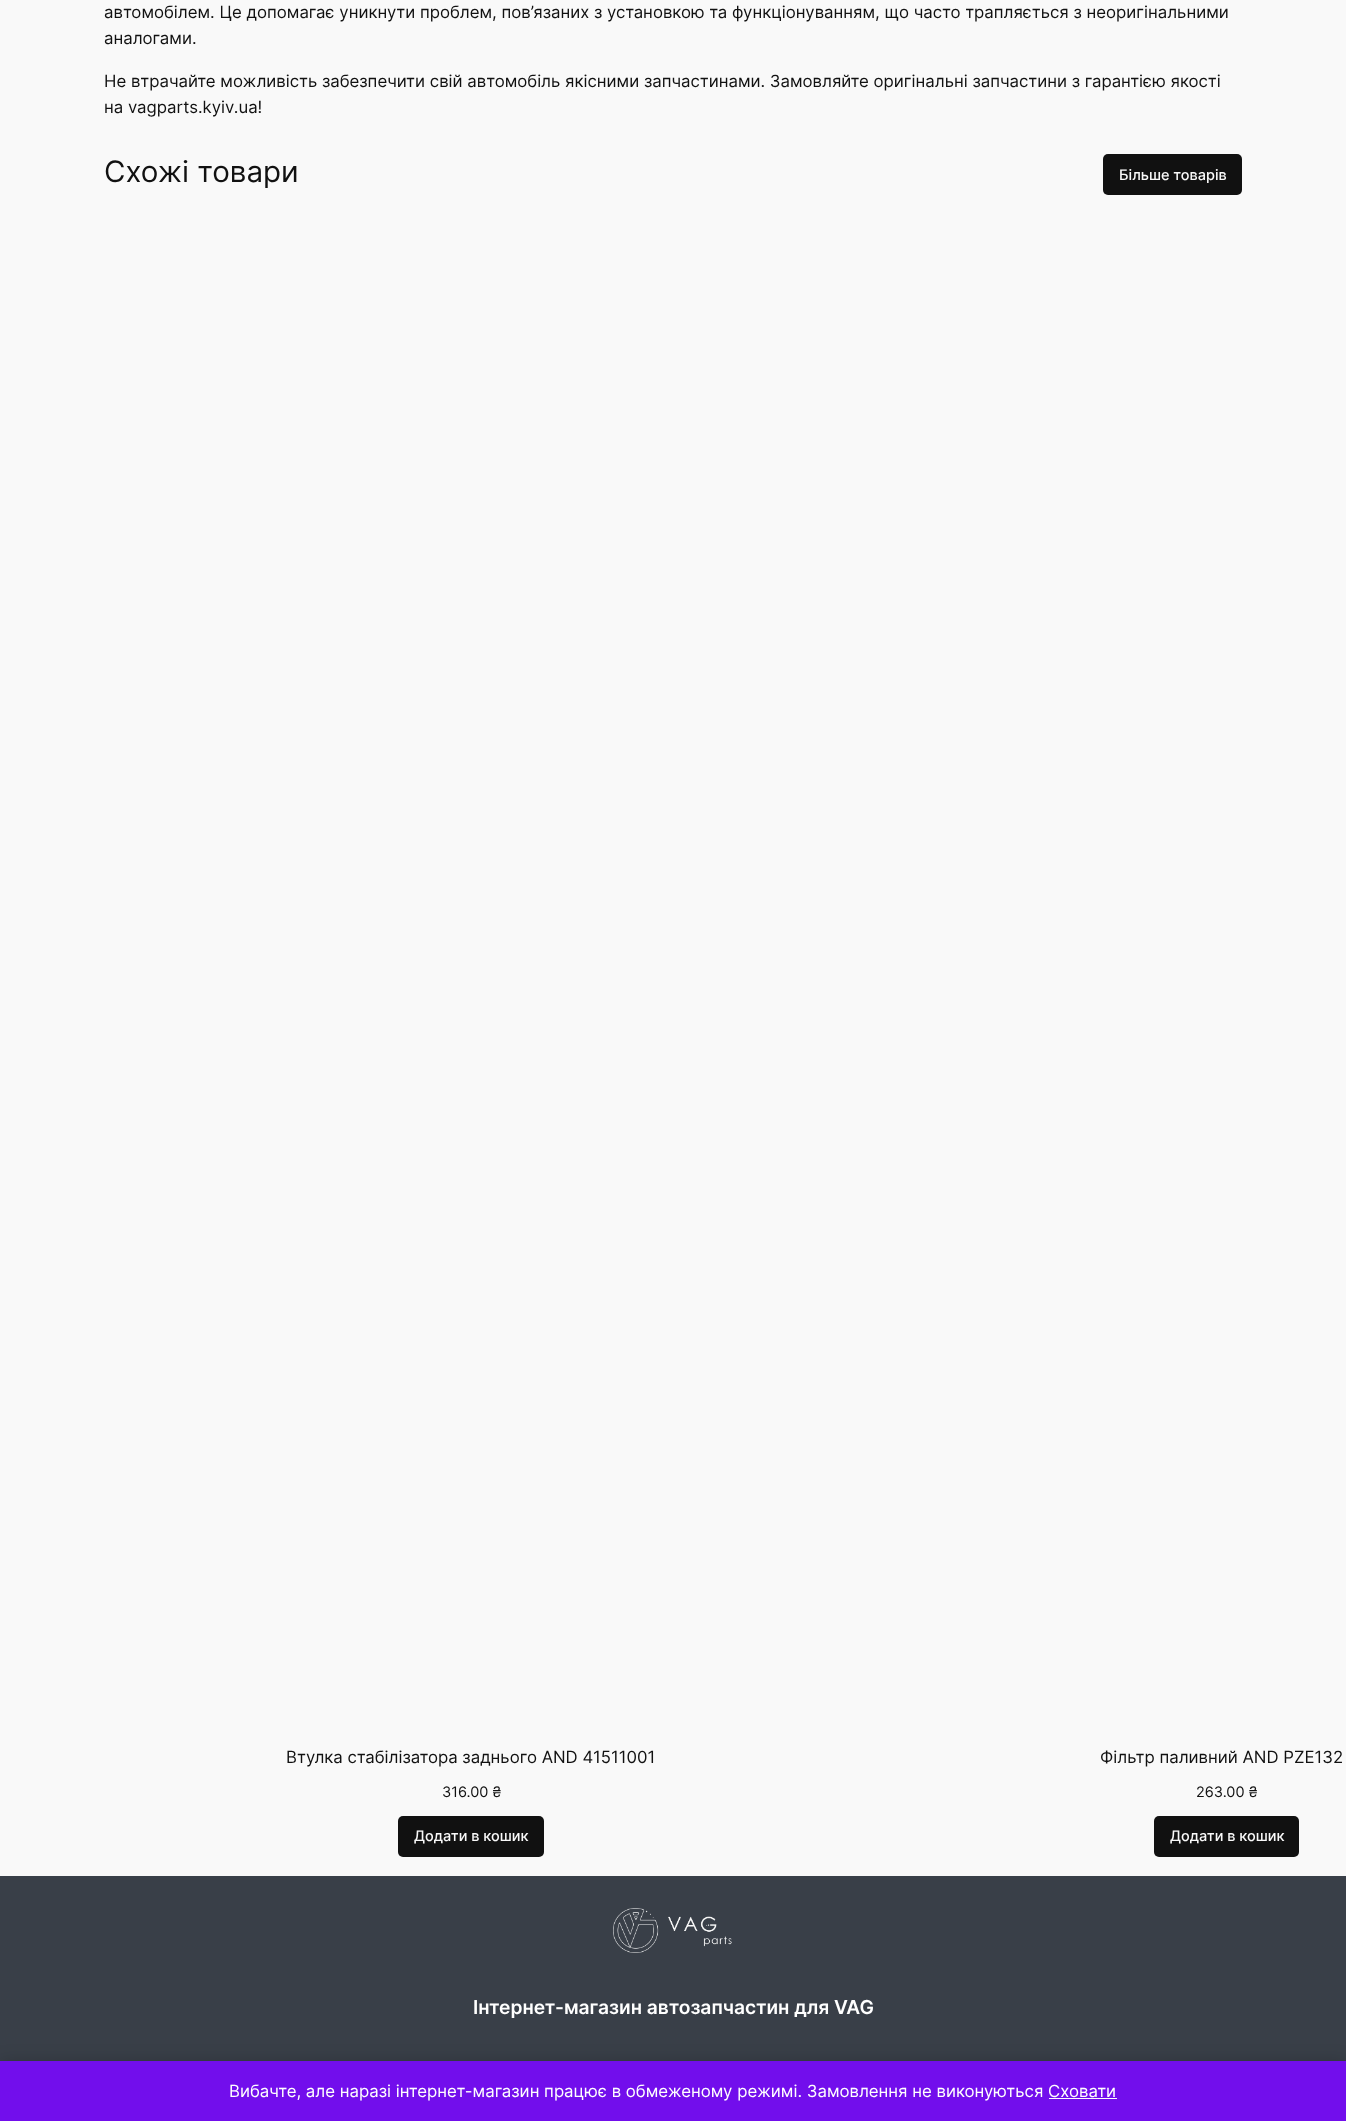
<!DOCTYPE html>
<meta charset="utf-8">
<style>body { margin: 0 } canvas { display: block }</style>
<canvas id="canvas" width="1346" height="2121"></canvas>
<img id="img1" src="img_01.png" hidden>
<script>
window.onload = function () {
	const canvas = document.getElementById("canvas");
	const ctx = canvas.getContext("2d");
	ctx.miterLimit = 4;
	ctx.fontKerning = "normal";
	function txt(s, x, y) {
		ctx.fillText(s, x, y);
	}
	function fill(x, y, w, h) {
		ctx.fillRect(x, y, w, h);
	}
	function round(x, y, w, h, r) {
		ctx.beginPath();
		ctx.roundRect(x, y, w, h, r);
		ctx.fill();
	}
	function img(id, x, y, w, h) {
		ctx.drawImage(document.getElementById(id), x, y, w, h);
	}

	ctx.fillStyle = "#F9F9F9";
	fill(0, 0, 1346, 2121);
	ctx.fillStyle = "#111111";
	round(1103, 154, 139, 41, 5);
	round(398, 1816, 146, 41, 5);
	round(1154, 1816, 145, 41, 5);
	ctx.fillStyle = "#393F48";
	fill(0, 1876, 1346, 185);
	img("img1", 613, 1908, 119, 45);
	ctx.fillStyle = "rgba(0, 0, 0, 0.2)";
	ctx.filter = "blur(8.5px)";
	ctx.beginPath();
	ctx.rect(0, 2062, 1346, 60);
	ctx.fill();
	ctx.filter = "none";
	ctx.fillStyle = "#720EEC";
	fill(0, 2061, 1346, 60);
	ctx.font = "16.8px Inter";
	ctx.fillStyle = "#111111";
	txt("автомобілем. Це допомагає уникнути проблем, пов’язаних з установкою та функціонуванням, що часто трапляється з неоригінальними", 104, 18);
	txt("аналогами.", 104, 44);
	txt("Не втрачайте можливість забезпечити свій автомобіль якісними запчастинами. Замовляйте оригінальні запчастини з гарантією якості", 104, 87);
	txt("на vagparts.kyiv.ua!", 104, 113);
	ctx.font = "29.5px Inter";
	txt("Схожі товари", 104, 182);
	ctx.font = "500 14.5px Inter";
	ctx.fillStyle = "#F9F9F9";
	txt("Більше товарів", 1119, 180);
	ctx.font = "16.8px Inter";
	ctx.fillStyle = "#111111";
	txt("Втулка стабілізатора заднього AND 41511001", 286, 1763);
	ctx.font = "14.5px Inter";
	txt("316.00 ₴", 442, 1797);
	ctx.font = "500 14.5px Inter";
	ctx.fillStyle = "#F9F9F9";
	txt("Додати в кошик", 414, 1841);
	ctx.font = "16.8px Inter";
	ctx.fillStyle = "#111111";
	txt("Фільтр паливний AND PZE132", 1100, 1763);
	ctx.font = "14.5px Inter";
	txt("263.00 ₴", 1196, 1797);
	ctx.font = "500 14.5px Inter";
	ctx.fillStyle = "#F9F9F9";
	txt("Додати в кошик", 1170, 1841);
	ctx.font = "600 19.2px Inter";
	ctx.fillStyle = "#FFFFFF";
	txt("Інтернет-магазин автозапчастин для VAG", 473, 2014);
	ctx.font = "16.8px Inter";
	txt("Вибачте, але наразі інтернет-магазин працює в обмеженому режимі. Замовлення не виконуються Сховати", 229, 2097);
	ctx.fillStyle = "#FCFBFE";
	fill(1049, 2098, 68, 1);
};
</script>
